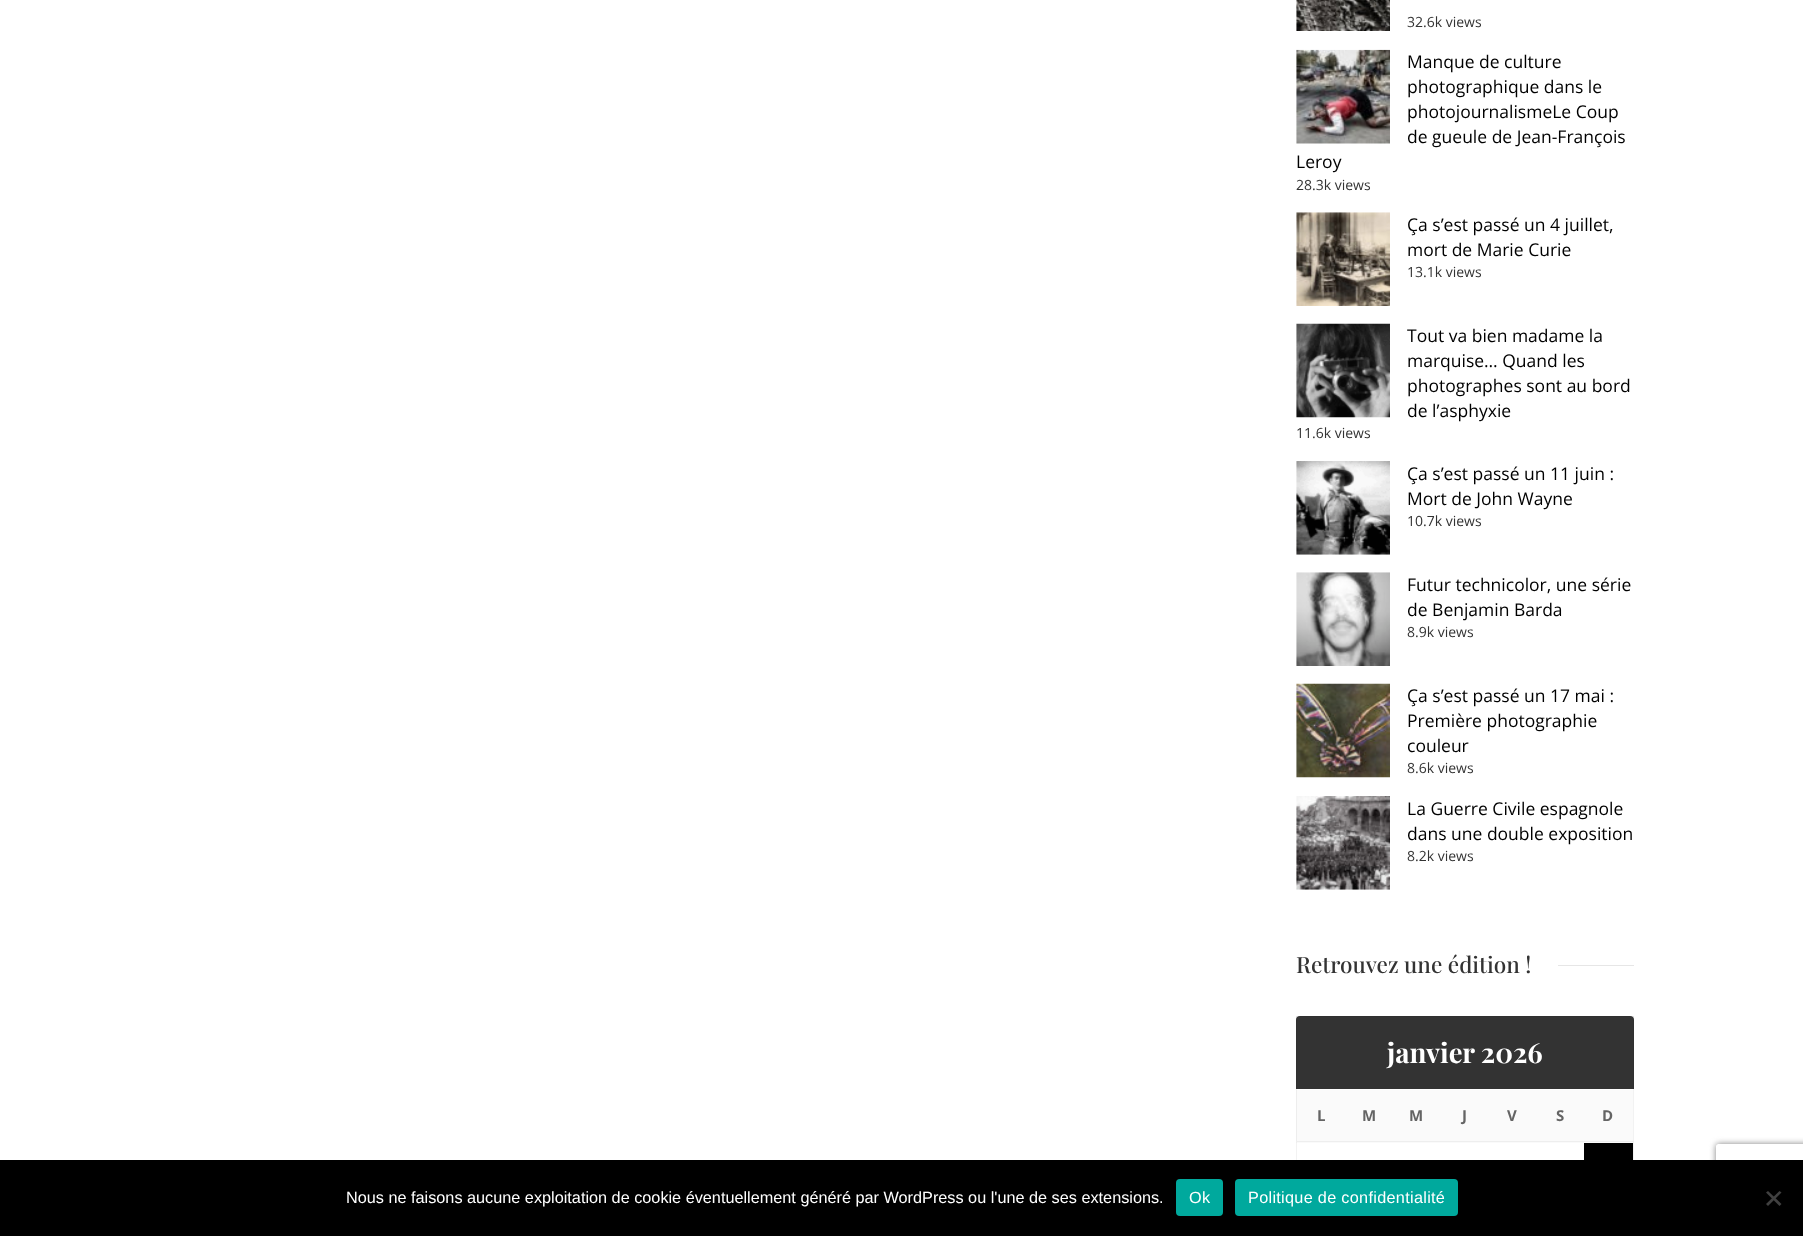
<!DOCTYPE html>
<meta charset="utf-8">
<style>body { margin: 0 } canvas { display: block }</style>
<canvas id="canvas" width="1803" height="1236"></canvas>
<img id="img1" src="img_01.png" hidden>
<img id="img2" src="img_02.png" hidden>
<img id="img3" src="img_03.png" hidden>
<img id="img4" src="img_04.png" hidden>
<img id="img5" src="img_05.png" hidden>
<img id="img6" src="img_06.png" hidden>
<img id="img7" src="img_07.png" hidden>
<img id="img8" src="img_08.png" hidden>
<script>
window.onload = function () {
	const canvas = document.getElementById("canvas");
	const ctx = canvas.getContext("2d");
	ctx.miterLimit = 4;
	ctx.fontKerning = "normal";
	function txt(s, x, y) {
		ctx.fillText(s, x, y);
	}
	function fill(x, y, w, h) {
		ctx.fillRect(x, y, w, h);
	}
	function round(x, y, w, h, r) {
		ctx.beginPath();
		ctx.roundRect(x, y, w, h, r);
		ctx.fill();
	}
	function img(id, x, y, w, h) {
		ctx.drawImage(document.getElementById(id), x, y, w, h);
	}

	ctx.fillStyle = "#FFFFFF";
	fill(0, 0, 1803, 1236);
	img("img1", 1296, 0, 94, 31);
	img("img2", 1296, 49, 94, 95);
	img("img3", 1296, 212, 94, 94);
	img("img4", 1296, 323, 94, 95);
	img("img5", 1296, 461, 94, 94);
	img("img6", 1296, 572, 94, 94);
	img("img7", 1296, 683, 94, 95);
	img("img8", 1296, 796, 94, 94);
	ctx.fillStyle = "#E6E6E6";
	fill(1558, 965, 76, 1);
	ctx.fillStyle = "#333333";
	ctx.beginPath();
	ctx.roundRect(1296, 1016, 338, 73, [4, 4, 0, 0]);
	ctx.fill();
	ctx.fillStyle = "rgba(0, 0, 0, 0.05)";
	fill(1296, 1016, 338, 1);
	fill(1633, 1016, 1, 144);
	ctx.fillStyle = "#FAFAFA";
	fill(1296, 1090, 337, 53);
	ctx.fillStyle = "rgba(0, 0, 0, 0.05)";
	fill(1296, 1016, 1, 144);
	ctx.fillStyle = "#EEEEEE";
	fill(1296, 1141, 338, 1);
	ctx.fillStyle = "#000000";
	fill(1584, 1143, 49, 17);
	ctx.save();
	ctx.beginPath();
	ctx.moveTo(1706, 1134);
	ctx.lineTo(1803, 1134);
	ctx.lineTo(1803, 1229);
	ctx.lineTo(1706, 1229);
	ctx.closePath();
	ctx.moveTo(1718.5, 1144);
	ctx.lineTo(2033.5, 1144);
	ctx.bezierCurveTo(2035, 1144, 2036, 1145, 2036, 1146.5);
	ctx.lineTo(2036, 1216.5);
	ctx.bezierCurveTo(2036, 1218, 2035, 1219, 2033.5, 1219);
	ctx.lineTo(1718.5, 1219);
	ctx.bezierCurveTo(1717, 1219, 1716, 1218, 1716, 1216.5);
	ctx.lineTo(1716, 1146.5);
	ctx.bezierCurveTo(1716, 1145, 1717, 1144, 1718.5, 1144);
	ctx.closePath();
	ctx.clip("evenodd");
	ctx.fillStyle = "#808080";
	ctx.filter = "blur(3px)";
	ctx.beginPath();
	ctx.roundRect(1716, 1144, 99, 75, 2.5);
	ctx.fill();
	ctx.filter = "none";
	ctx.restore();
	fill(0, 1160, 1803, 76);
	ctx.fillStyle = "#00A99D";
	round(1176, 1179, 47, 37, 4);
	round(1235, 1179, 223, 37, 4);
	ctx.fillStyle = "#404040";
	ctx.beginPath();
	ctx.moveTo(1779.5, 1191);
	ctx.lineTo(1781.5, 1192.5);
	ctx.lineTo(1768, 1206);
	ctx.lineTo(1766, 1204);
	ctx.closePath();
	ctx.fill();
	ctx.beginPath();
	ctx.moveTo(1766, 1192.5);
	ctx.lineTo(1768, 1191);
	ctx.lineTo(1781.5, 1204);
	ctx.lineTo(1779.5, 1206);
	ctx.closePath();
	ctx.fill();
	ctx.font = "14px Open Sans";
	ctx.fillStyle = "#333333";
	txt("32.6k views", 1407, 27);
	ctx.font = "17.5px Open Sans";
	ctx.fillStyle = "#000000";
	txt("Manque de culture", 1407, 68);
	txt("photographique dans le", 1407, 93);
	txt("photojournalismeLe Coup", 1407, 118);
	txt("de gueule de Jean-François", 1407, 143);
	txt("Leroy", 1296, 168);
	ctx.font = "14px Open Sans";
	ctx.fillStyle = "#333333";
	txt("28.3k views", 1296, 190);
	ctx.font = "17.5px Open Sans";
	ctx.fillStyle = "#000000";
	txt("Ça s’est passé un 4 juillet,", 1407, 231);
	txt("mort de Marie Curie", 1407, 256);
	ctx.font = "14px Open Sans";
	ctx.fillStyle = "#333333";
	txt("13.1k views", 1407, 277);
	ctx.font = "17.5px Open Sans";
	ctx.fillStyle = "#000000";
	txt("Tout va bien madame la", 1407, 342);
	txt("marquise… Quand les", 1407, 367);
	txt("photographes sont au bord", 1407, 392);
	txt("de l’asphyxie", 1407, 417);
	ctx.font = "14px Open Sans";
	ctx.fillStyle = "#333333";
	txt("11.6k views", 1296, 438);
	ctx.font = "17.5px Open Sans";
	ctx.fillStyle = "#000000";
	txt("Ça s’est passé un 11 juin :", 1407, 480);
	txt("Mort de John Wayne", 1407, 505);
	ctx.font = "14px Open Sans";
	ctx.fillStyle = "#333333";
	txt("10.7k views", 1407, 526);
	ctx.font = "17.5px Open Sans";
	ctx.fillStyle = "#000000";
	txt("Futur technicolor, une série", 1407, 591);
	txt("de Benjamin Barda", 1407, 616);
	ctx.font = "14px Open Sans";
	ctx.fillStyle = "#333333";
	txt("8.9k views", 1407, 637);
	ctx.font = "17.5px Open Sans";
	ctx.fillStyle = "#000000";
	txt("Ça s’est passé un 17 mai :", 1407, 702);
	txt("Première photographie", 1407, 727);
	txt("couleur", 1407, 752);
	ctx.font = "14px Open Sans";
	ctx.fillStyle = "#333333";
	txt("8.6k views", 1407, 773);
	ctx.font = "17.5px Open Sans";
	ctx.fillStyle = "#000000";
	txt("La Guerre Civile espagnole", 1407, 815);
	txt("dans une double exposition", 1407, 840);
	ctx.font = "14px Open Sans";
	ctx.fillStyle = "#333333";
	txt("8.2k views", 1407, 861);
	ctx.font = "500 22.5px Playfair Display";
	txt("Retrouvez une édition !", 1296, 973);
	ctx.font = "bold 27.5px Playfair Display";
	ctx.fillStyle = "#FFFFFF";
	txt("janvier 2026", 1387, 1063);
	ctx.font = "bold 15px Open Sans";
	ctx.fillStyle = "#646464";
	txt("L", 1317, 1121);
	txt("M", 1362, 1121);
	txt("M", 1409, 1121);
	txt("J", 1462, 1121);
	txt("V", 1507, 1121);
	txt("S", 1556, 1121);
	txt("D", 1602, 1121);
	ctx.font = "16.25px Liberation Sans";
	ctx.fillStyle = "#FFFFFF";
	txt("Nous ne faisons aucune exploitation de cookie éventuellement généré par WordPress ou l'une de ses extensions.", 346, 1203);
	ctx.letterSpacing = "0.3px";
	txt("Ok", 1189, 1203);
	txt("Politique de confidentialité", 1248, 1203);
};
</script>
